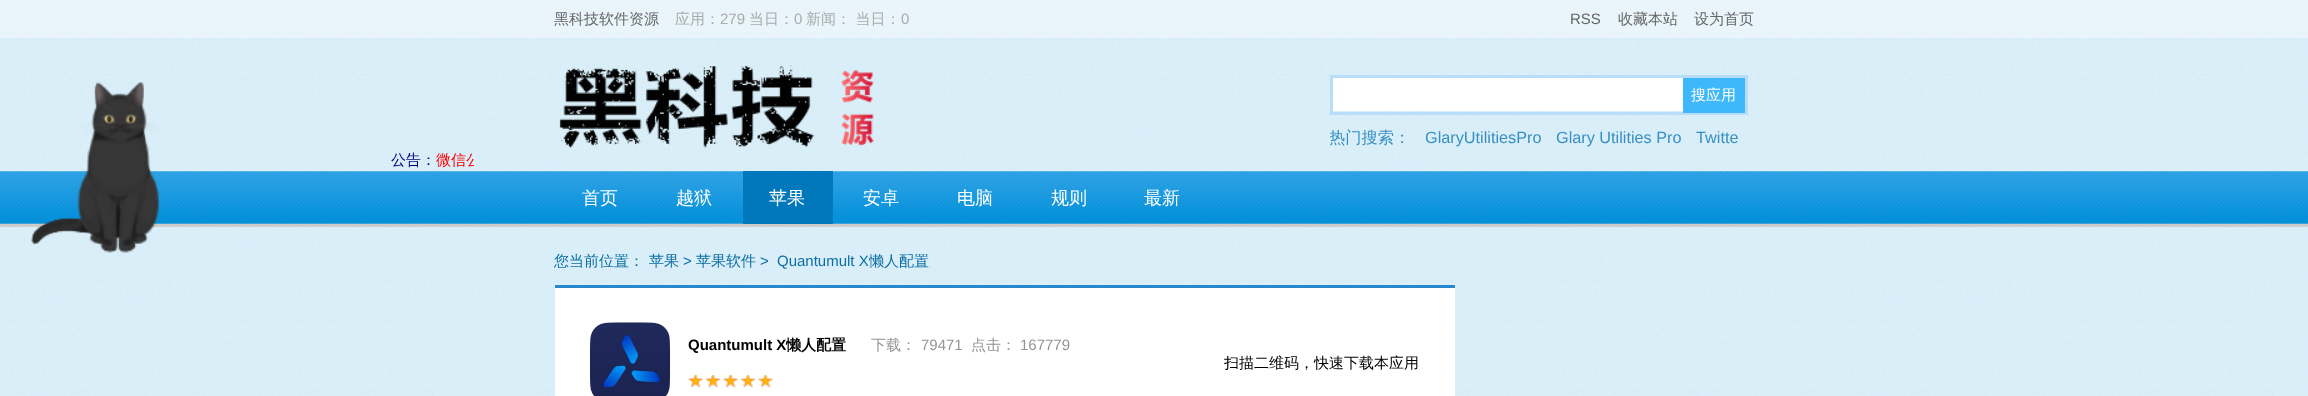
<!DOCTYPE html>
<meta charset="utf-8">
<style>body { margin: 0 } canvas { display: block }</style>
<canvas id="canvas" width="2308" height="396"></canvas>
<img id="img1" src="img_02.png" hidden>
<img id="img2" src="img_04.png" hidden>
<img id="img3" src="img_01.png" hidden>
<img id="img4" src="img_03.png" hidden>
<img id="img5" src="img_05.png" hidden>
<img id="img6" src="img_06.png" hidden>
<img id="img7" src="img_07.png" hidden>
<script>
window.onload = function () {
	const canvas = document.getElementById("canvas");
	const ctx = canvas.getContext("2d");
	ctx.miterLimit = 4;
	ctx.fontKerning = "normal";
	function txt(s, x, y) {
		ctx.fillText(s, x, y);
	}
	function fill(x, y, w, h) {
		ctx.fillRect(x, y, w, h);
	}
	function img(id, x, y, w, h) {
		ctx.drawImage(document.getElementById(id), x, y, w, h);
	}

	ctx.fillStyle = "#FFFFFF";
	fill(0, 0, 2308, 396);
	img("img1", 0, 38, 2308, 358);
	img("img2", 0, 171, 2308, 53);
	ctx.fillStyle = "#CCCCCC";
	fill(0, 224, 2308, 3);
	img("img3", 31, 82, 129, 171);
	ctx.fillStyle = "#E9F5FB";
	fill(0, 0, 2308, 38);
	img("img4", 559, 65, 315, 83);
	ctx.strokeStyle = "#B8DDF8";
	ctx.lineWidth = 3;
	ctx.strokeRect(1331.5, 76.5, 415, 37);
	ctx.fillStyle = "#FFFFFF";
	fill(1333, 78, 350, 33);
	ctx.fillStyle = "#3EB8FA";
	fill(1683, 78, 62, 35);
	ctx.fillStyle = "#0078BB";
	fill(743, 171, 90, 53);
	ctx.fillStyle = "#FFFFFF";
	fill(555, 288, 900, 108);
	ctx.fillStyle = "#2788CF";
	fill(555, 285, 900, 3);
	img("img5", 590, 322, 80, 74);
	img("img6", 688, 375, 85, 13);
	img("img7", 688, 375, 85, 13);
	ctx.font = "500 15px WenQuanYi Zen Hei";
	ctx.fillStyle = "#666666";
	txt("黑科技软件资源", 554, 24);
	ctx.fillStyle = "#AAAAAA";
	txt("应用：", 675, 24);
	ctx.font = "15px Liberation Sans";
	txt("279", 720, 24);
	ctx.font = "500 15px WenQuanYi Zen Hei";
	txt("当日：", 749, 24);
	ctx.font = "15px Liberation Sans";
	txt("0", 794, 24);
	ctx.font = "500 15px WenQuanYi Zen Hei";
	txt("新闻： 当日：", 806, 24);
	ctx.font = "15px Liberation Sans";
	txt("0", 901, 24);
	ctx.fillStyle = "#666666";
	txt("RSS", 1570, 24);
	ctx.font = "500 15px WenQuanYi Zen Hei";
	txt("收藏本站", 1618, 24);
	txt("设为首页", 1694, 24);
	ctx.fillStyle = "#FFFFFF";
	txt("搜应用", 1691, 100);
	ctx.save();
	ctx.beginPath();
	ctx.rect(1330, 115, 413, 45);
	ctx.clip();
	ctx.font = "500 16.25px WenQuanYi Zen Hei";
	ctx.fillStyle = "#3890C2";
	txt("热门搜索：", 1329, 143);
	ctx.restore();
	ctx.font = "16.25px Liberation Sans";
	ctx.fillStyle = "#3890C2";
	txt("GlaryUtilitiesPro", 1425, 143);
	txt("Glary Utilities Pro", 1556, 143);
	txt("Twitte", 1696, 143);
	ctx.font = "500 15px WenQuanYi Zen Hei";
	ctx.fillStyle = "#000880";
	txt("公告：", 391, 165);
	ctx.save();
	ctx.beginPath();
	ctx.rect(0, 150, 474, 21);
	ctx.clip();
	ctx.fillStyle = "#FF0000";
	txt("微信公", 436, 165);
	ctx.restore();
	ctx.font = "500 18px WenQuanYi Zen Hei";
	ctx.fillStyle = "#FFFFFF";
	txt("首页", 582, 204);
	txt("越狱", 676, 204);
	txt("苹果", 769, 204);
	txt("安卓", 863, 204);
	txt("电脑", 957, 204);
	txt("规则", 1051, 204);
	txt("最新", 1144, 204);
	ctx.font = "500 15px WenQuanYi Zen Hei";
	ctx.fillStyle = "#0C6FA4";
	txt("您当前位置：", 554, 266);
	txt("苹果", 649, 266);
	ctx.font = "15px Liberation Sans";
	txt(">", 683, 266);
	ctx.font = "500 15px WenQuanYi Zen Hei";
	txt("苹果软件", 696, 266);
	ctx.font = "15px Liberation Sans";
	txt(">", 760, 266);
	txt("Quantumult X", 777, 266);
	ctx.font = "500 15px WenQuanYi Zen Hei";
	txt("懒人配置", 869, 266);
	ctx.font = "bold 15px Liberation Sans";
	ctx.fillStyle = "#000000";
	txt("Quantumult X", 688, 350);
	ctx.font = "bold 15px WenQuanYi Zen Hei";
	txt("懒人配置", 786, 350);
	ctx.font = "500 15px WenQuanYi Zen Hei";
	ctx.fillStyle = "#949494";
	txt("下载：", 871, 350);
	ctx.font = "15px Liberation Sans";
	txt("79471", 921, 350);
	ctx.font = "500 15px WenQuanYi Zen Hei";
	txt("点击：", 971, 350);
	ctx.font = "15px Liberation Sans";
	txt("167779", 1020, 350);
	ctx.font = "500 15px WenQuanYi Zen Hei";
	ctx.fillStyle = "#000000";
	txt("扫描二维码，快速下载本应用", 1224, 368);
};
</script>
